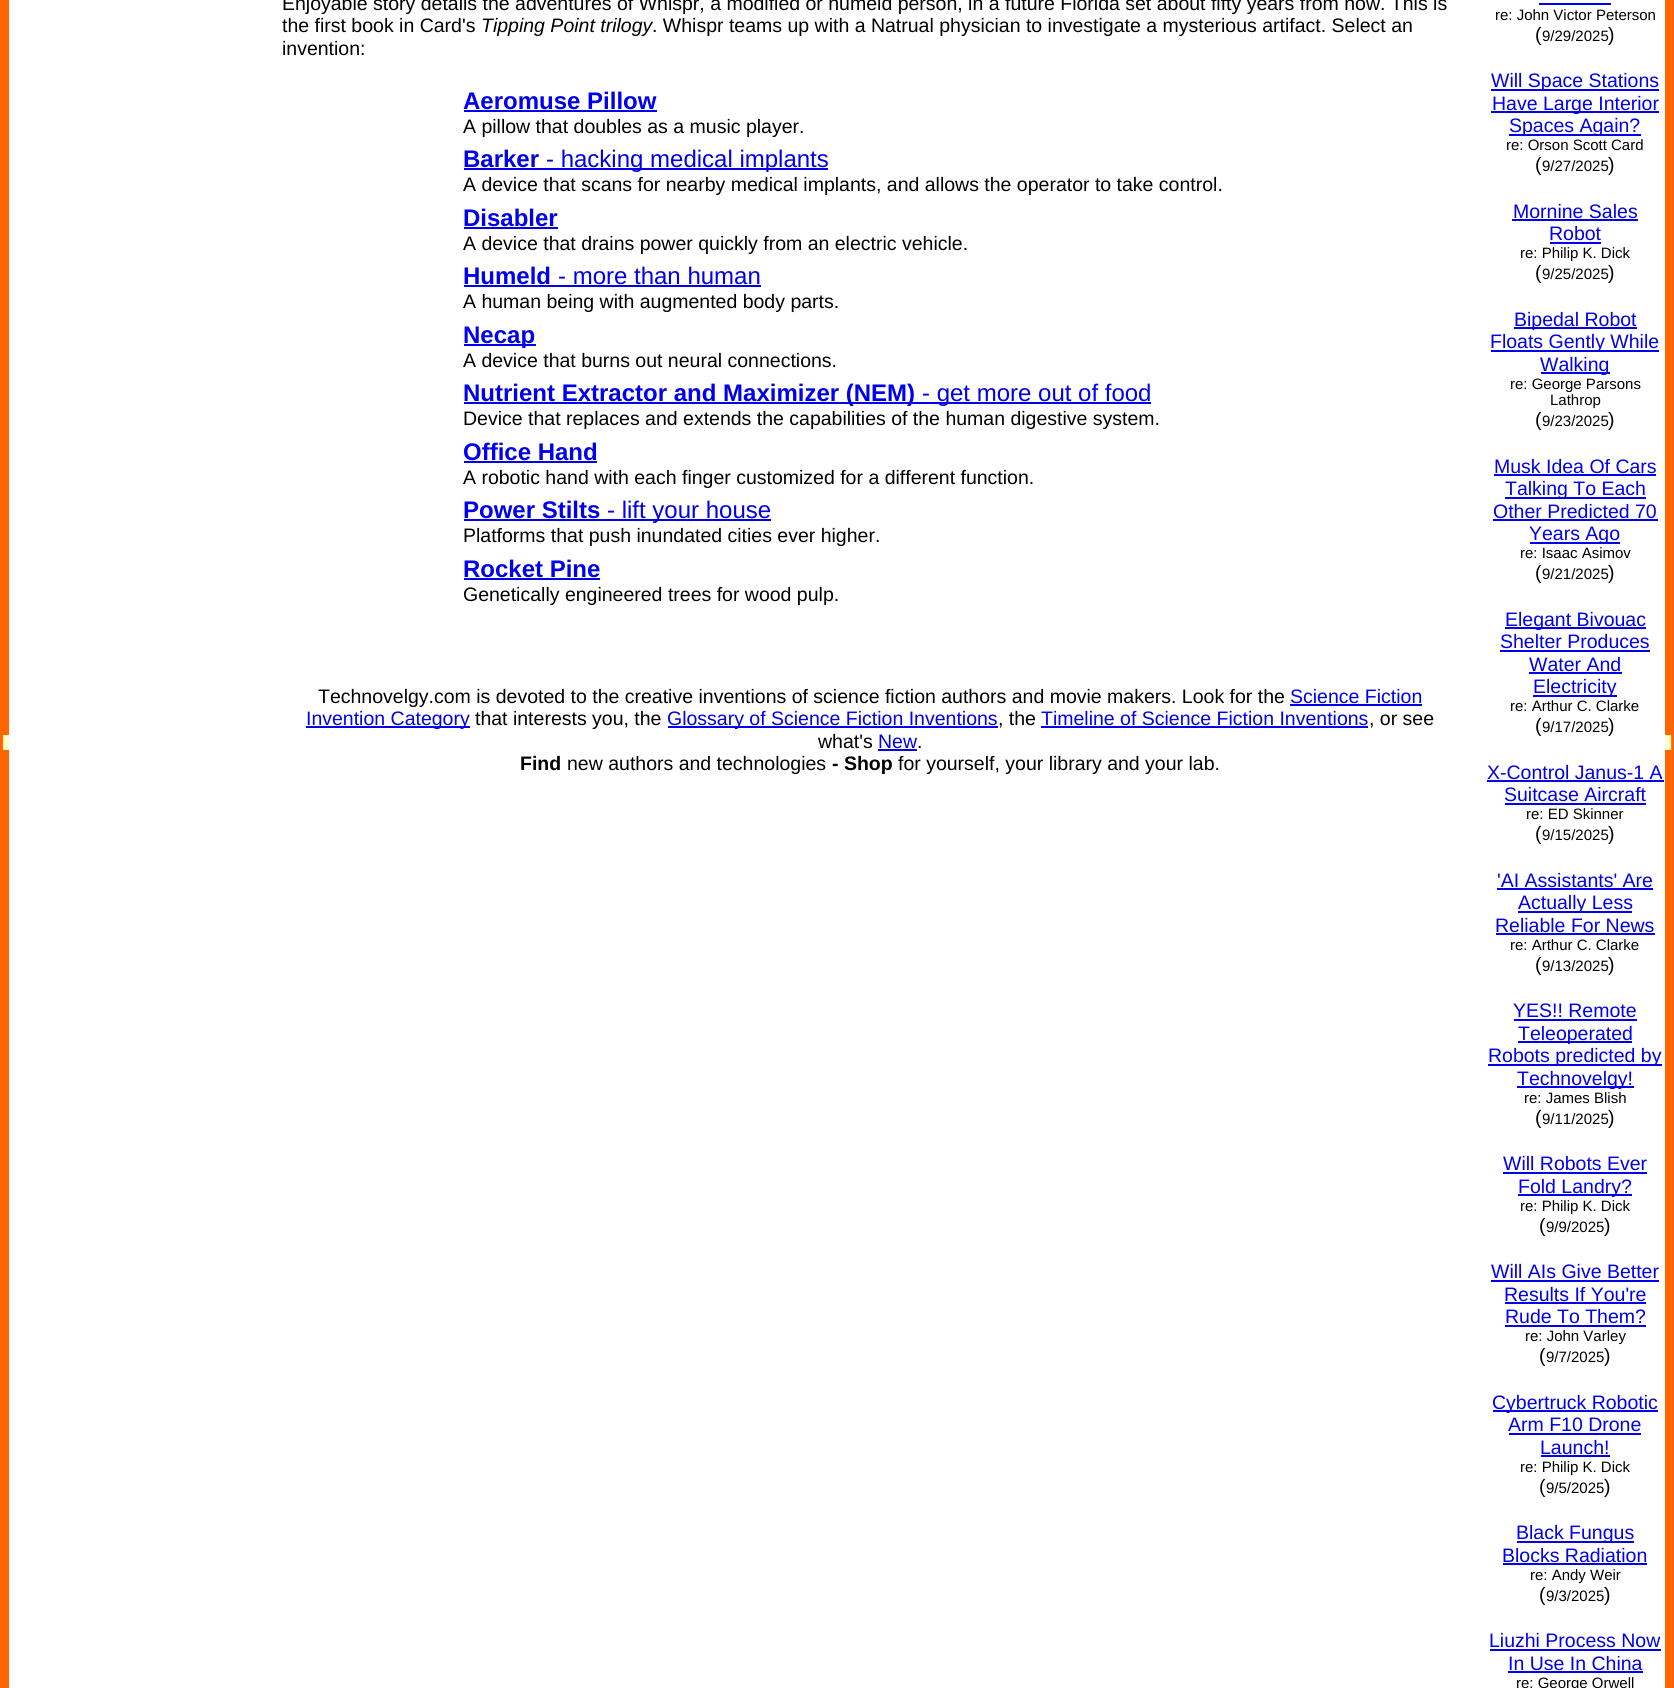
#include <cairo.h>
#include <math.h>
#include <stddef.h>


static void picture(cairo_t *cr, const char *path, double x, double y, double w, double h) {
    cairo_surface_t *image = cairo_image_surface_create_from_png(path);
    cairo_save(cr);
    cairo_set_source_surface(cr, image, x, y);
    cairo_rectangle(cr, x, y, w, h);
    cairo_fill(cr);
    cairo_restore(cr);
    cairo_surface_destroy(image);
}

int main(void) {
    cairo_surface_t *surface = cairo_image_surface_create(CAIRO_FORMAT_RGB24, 1674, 1688);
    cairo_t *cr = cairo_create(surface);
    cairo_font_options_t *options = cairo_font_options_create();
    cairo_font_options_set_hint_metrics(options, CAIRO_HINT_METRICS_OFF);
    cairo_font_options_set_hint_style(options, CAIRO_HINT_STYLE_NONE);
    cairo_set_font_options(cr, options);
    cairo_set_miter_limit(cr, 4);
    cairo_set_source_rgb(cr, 1, 1, 1);
    cairo_paint(cr);
    cairo_set_source_rgb(cr, 1, 0.4, 0);
    cairo_rectangle(cr, 0, 0, 9, 1688);
    cairo_fill(cr);
    picture(cr, "img1.png", 2, 735, 7, 15);
    cairo_select_font_face(cr, "Liberation Sans", CAIRO_FONT_SLANT_NORMAL, CAIRO_FONT_WEIGHT_NORMAL);
    cairo_set_font_size(cr, 19.5);
    cairo_set_source_rgb(cr, 0, 0, 0);
    cairo_move_to(cr, 282, 10);
    cairo_show_text(cr, "Enjoyable story details the adventures of Whispr, a modified or humeld person, in a future Florida set about fifty years from now. This is");
    cairo_move_to(cr, 282, 32);
    cairo_show_text(cr, "the first book in Card's");
    cairo_select_font_face(cr, "Liberation Sans", CAIRO_FONT_SLANT_ITALIC, CAIRO_FONT_WEIGHT_NORMAL);
    cairo_move_to(cr, 481, 32);
    cairo_show_text(cr, "Tipping Point trilogy");
    cairo_select_font_face(cr, "Liberation Sans", CAIRO_FONT_SLANT_NORMAL, CAIRO_FONT_WEIGHT_NORMAL);
    cairo_move_to(cr, 652, 32);
    cairo_show_text(cr, ". Whispr teams up with a Natrual physician to investigate a mysterious artifact. Select an");
    cairo_move_to(cr, 282, 55);
    cairo_show_text(cr, "invention:");
    cairo_select_font_face(cr, "Liberation Sans", CAIRO_FONT_SLANT_NORMAL, CAIRO_FONT_WEIGHT_BOLD);
    cairo_set_font_size(cr, 24);
    cairo_set_source_rgb(cr, 0, 0, 0.933);
    cairo_move_to(cr, 463, 109);
    cairo_show_text(cr, "Aeromuse Pillow");
    cairo_rectangle(cr, 464, 110, 193, 2);
    cairo_fill(cr);
    cairo_select_font_face(cr, "Liberation Sans", CAIRO_FONT_SLANT_NORMAL, CAIRO_FONT_WEIGHT_NORMAL);
    cairo_set_font_size(cr, 19.5);
    cairo_set_source_rgb(cr, 0, 0, 0);
    cairo_move_to(cr, 463, 133);
    cairo_show_text(cr, "A pillow that doubles as a music player.");
    cairo_select_font_face(cr, "Liberation Sans", CAIRO_FONT_SLANT_NORMAL, CAIRO_FONT_WEIGHT_BOLD);
    cairo_set_font_size(cr, 24);
    cairo_set_source_rgb(cr, 0, 0, 0.933);
    cairo_move_to(cr, 463, 167);
    cairo_show_text(cr, "Barker");
    cairo_rectangle(cr, 464, 168, 364, 2);
    cairo_fill(cr);
    cairo_select_font_face(cr, "Liberation Sans", CAIRO_FONT_SLANT_NORMAL, CAIRO_FONT_WEIGHT_NORMAL);
    cairo_move_to(cr, 546, 167);
    cairo_show_text(cr, "- hacking medical implants");
    cairo_set_font_size(cr, 19.5);
    cairo_set_source_rgb(cr, 0, 0, 0);
    cairo_move_to(cr, 463, 191);
    cairo_show_text(cr, "A device that scans for nearby medical implants, and allows the operator to take control.");
    cairo_select_font_face(cr, "Liberation Sans", CAIRO_FONT_SLANT_NORMAL, CAIRO_FONT_WEIGHT_BOLD);
    cairo_set_font_size(cr, 24);
    cairo_set_source_rgb(cr, 0, 0, 0.933);
    cairo_move_to(cr, 463, 226);
    cairo_show_text(cr, "Disabler");
    cairo_rectangle(cr, 464, 227, 94, 2);
    cairo_fill(cr);
    cairo_select_font_face(cr, "Liberation Sans", CAIRO_FONT_SLANT_NORMAL, CAIRO_FONT_WEIGHT_NORMAL);
    cairo_set_font_size(cr, 19.5);
    cairo_set_source_rgb(cr, 0, 0, 0);
    cairo_move_to(cr, 463, 250);
    cairo_show_text(cr, "A device that drains power quickly from an electric vehicle.");
    cairo_select_font_face(cr, "Liberation Sans", CAIRO_FONT_SLANT_NORMAL, CAIRO_FONT_WEIGHT_BOLD);
    cairo_set_font_size(cr, 24);
    cairo_set_source_rgb(cr, 0, 0, 0.933);
    cairo_move_to(cr, 463, 284);
    cairo_show_text(cr, "Humeld");
    cairo_rectangle(cr, 464, 285, 297, 2);
    cairo_fill(cr);
    cairo_select_font_face(cr, "Liberation Sans", CAIRO_FONT_SLANT_NORMAL, CAIRO_FONT_WEIGHT_NORMAL);
    cairo_move_to(cr, 558, 284);
    cairo_show_text(cr, "- more than human");
    cairo_set_font_size(cr, 19.5);
    cairo_set_source_rgb(cr, 0, 0, 0);
    cairo_move_to(cr, 463, 308);
    cairo_show_text(cr, "A human being with augmented body parts.");
    cairo_set_source_rgb(cr, 0, 0, 0.933);
    cairo_rectangle(cr, 464, 344, 72, 2);
    cairo_fill(cr);
    cairo_select_font_face(cr, "Liberation Sans", CAIRO_FONT_SLANT_NORMAL, CAIRO_FONT_WEIGHT_BOLD);
    cairo_set_font_size(cr, 24);
    cairo_move_to(cr, 463, 343);
    cairo_show_text(cr, "Necap");
    cairo_select_font_face(cr, "Liberation Sans", CAIRO_FONT_SLANT_NORMAL, CAIRO_FONT_WEIGHT_NORMAL);
    cairo_set_font_size(cr, 19.5);
    cairo_set_source_rgb(cr, 0, 0, 0);
    cairo_move_to(cr, 463, 367);
    cairo_show_text(cr, "A device that burns out neural connections.");
    cairo_set_source_rgb(cr, 0, 0, 0.933);
    cairo_rectangle(cr, 464, 402, 687, 2);
    cairo_fill(cr);
    cairo_select_font_face(cr, "Liberation Sans", CAIRO_FONT_SLANT_NORMAL, CAIRO_FONT_WEIGHT_BOLD);
    cairo_set_font_size(cr, 24);
    cairo_move_to(cr, 463, 401);
    cairo_show_text(cr, "Nutrient Extractor and Maximizer (NEM)");
    cairo_select_font_face(cr, "Liberation Sans", CAIRO_FONT_SLANT_NORMAL, CAIRO_FONT_WEIGHT_NORMAL);
    cairo_move_to(cr, 922, 401);
    cairo_show_text(cr, "- get more out of food");
    cairo_set_font_size(cr, 19.5);
    cairo_set_source_rgb(cr, 0, 0, 0);
    cairo_move_to(cr, 463, 425);
    cairo_show_text(cr, "Device that replaces and extends the capabilities of the human digestive system.");
    cairo_select_font_face(cr, "Liberation Sans", CAIRO_FONT_SLANT_NORMAL, CAIRO_FONT_WEIGHT_BOLD);
    cairo_set_font_size(cr, 24);
    cairo_set_source_rgb(cr, 0, 0, 0.933);
    cairo_move_to(cr, 463, 460);
    cairo_show_text(cr, "Office Hand");
    cairo_rectangle(cr, 464, 461, 133, 2);
    cairo_fill(cr);
    cairo_select_font_face(cr, "Liberation Sans", CAIRO_FONT_SLANT_NORMAL, CAIRO_FONT_WEIGHT_NORMAL);
    cairo_set_font_size(cr, 19.5);
    cairo_set_source_rgb(cr, 0, 0, 0);
    cairo_move_to(cr, 463, 484);
    cairo_show_text(cr, "A robotic hand with each finger customized for a different function.");
    cairo_select_font_face(cr, "Liberation Sans", CAIRO_FONT_SLANT_NORMAL, CAIRO_FONT_WEIGHT_BOLD);
    cairo_set_font_size(cr, 24);
    cairo_set_source_rgb(cr, 0, 0, 0.933);
    cairo_move_to(cr, 463, 518);
    cairo_show_text(cr, "Power Stilts");
    cairo_rectangle(cr, 464, 519, 307, 2);
    cairo_fill(cr);
    cairo_select_font_face(cr, "Liberation Sans", CAIRO_FONT_SLANT_NORMAL, CAIRO_FONT_WEIGHT_NORMAL);
    cairo_move_to(cr, 607, 518);
    cairo_show_text(cr, "- lift your house");
    cairo_set_font_size(cr, 19.5);
    cairo_set_source_rgb(cr, 0, 0, 0);
    cairo_move_to(cr, 463, 542);
    cairo_show_text(cr, "Platforms that push inundated cities ever higher.");
    cairo_select_font_face(cr, "Liberation Sans", CAIRO_FONT_SLANT_NORMAL, CAIRO_FONT_WEIGHT_BOLD);
    cairo_set_font_size(cr, 24);
    cairo_set_source_rgb(cr, 0, 0, 0.933);
    cairo_move_to(cr, 463, 577);
    cairo_show_text(cr, "Rocket Pine");
    cairo_rectangle(cr, 464, 578, 136, 2);
    cairo_fill(cr);
    cairo_select_font_face(cr, "Liberation Sans", CAIRO_FONT_SLANT_NORMAL, CAIRO_FONT_WEIGHT_NORMAL);
    cairo_set_font_size(cr, 19.5);
    cairo_set_source_rgb(cr, 0, 0, 0);
    cairo_move_to(cr, 463, 601);
    cairo_show_text(cr, "Genetically engineered trees for wood pulp.");
    cairo_move_to(cr, 318, 703);
    cairo_show_text(cr, "Technovelgy.com is devoted to the creative inventions of science fiction authors and movie makers. Look for the");
    cairo_set_source_rgb(cr, 0, 0, 0.933);
    cairo_move_to(cr, 1290, 703);
    cairo_show_text(cr, "Science Fiction");
    cairo_rectangle(cr, 1290, 704, 132, 2);
    cairo_fill(cr);
    cairo_rectangle(cr, 306, 726, 164, 2);
    cairo_fill(cr);
    cairo_move_to(cr, 306, 725);
    cairo_show_text(cr, "Invention Category");
    cairo_set_source_rgb(cr, 0, 0, 0);
    cairo_move_to(cr, 475, 725);
    cairo_show_text(cr, "that interests you, the");
    cairo_set_source_rgb(cr, 0, 0, 0.933);
    cairo_rectangle(cr, 668, 726, 330, 2);
    cairo_fill(cr);
    cairo_move_to(cr, 667, 725);
    cairo_show_text(cr, "Glossary of Science Fiction Inventions");
    cairo_set_source_rgb(cr, 0, 0, 0);
    cairo_move_to(cr, 998, 725);
    cairo_show_text(cr, ", the");
    cairo_set_source_rgb(cr, 0, 0, 0.933);
    cairo_move_to(cr, 1041, 725);
    cairo_show_text(cr, "Timeline of Science Fiction Inventions");
    cairo_set_source_rgb(cr, 0, 0, 0);
    cairo_move_to(cr, 1369, 725);
    cairo_show_text(cr, ", or see");
    cairo_set_source_rgb(cr, 0, 0, 0.933);
    cairo_rectangle(cr, 1041, 726, 327, 2);
    cairo_fill(cr);
    cairo_set_source_rgb(cr, 0, 0, 0);
    cairo_move_to(cr, 818, 748);
    cairo_show_text(cr, "what's");
    cairo_set_source_rgb(cr, 0, 0, 0.933);
    cairo_move_to(cr, 878, 748);
    cairo_show_text(cr, "New");
    cairo_set_source_rgb(cr, 0, 0, 0);
    cairo_move_to(cr, 917, 748);
    cairo_show_text(cr, ".");
    cairo_set_source_rgb(cr, 0, 0, 0.933);
    cairo_rectangle(cr, 878, 749, 39, 2);
    cairo_fill(cr);
    cairo_select_font_face(cr, "Liberation Sans", CAIRO_FONT_SLANT_NORMAL, CAIRO_FONT_WEIGHT_BOLD);
    cairo_set_source_rgb(cr, 0, 0, 0);
    cairo_move_to(cr, 520, 770);
    cairo_show_text(cr, "Find");
    cairo_select_font_face(cr, "Liberation Sans", CAIRO_FONT_SLANT_NORMAL, CAIRO_FONT_WEIGHT_NORMAL);
    cairo_move_to(cr, 567, 770);
    cairo_show_text(cr, "new authors and technologies");
    cairo_select_font_face(cr, "Liberation Sans", CAIRO_FONT_SLANT_NORMAL, CAIRO_FONT_WEIGHT_BOLD);
    cairo_move_to(cr, 832, 770);
    cairo_show_text(cr, "- Shop");
    cairo_select_font_face(cr, "Liberation Sans", CAIRO_FONT_SLANT_NORMAL, CAIRO_FONT_WEIGHT_NORMAL);
    cairo_move_to(cr, 898, 770);
    cairo_show_text(cr, "for yourself, your library and your lab.");
    cairo_set_font_size(cr, 15);
    cairo_move_to(cr, 1495, 20);
    cairo_show_text(cr, "re: John Victor Peterson");
    cairo_set_source_rgb(cr, 0, 0, 0.933);
    cairo_rectangle(cr, 1539, 3, 72, 2);
    cairo_fill(cr);
    cairo_set_font_size(cr, 19.5);
    cairo_set_source_rgb(cr, 0, 0, 0);
    cairo_move_to(cr, 1535, 41);
    cairo_show_text(cr, "(");
    cairo_set_font_size(cr, 15);
    cairo_move_to(cr, 1542, 41);
    cairo_show_text(cr, "9/29/2025");
    cairo_set_font_size(cr, 19.5);
    cairo_move_to(cr, 1608, 41);
    cairo_show_text(cr, ")");
    cairo_set_source_rgb(cr, 0, 0, 0.933);
    cairo_rectangle(cr, 1491, 89, 168, 2);
    cairo_fill(cr);
    cairo_move_to(cr, 1491, 87);
    cairo_show_text(cr, "Will Space Stations");
    cairo_rectangle(cr, 1491, 111, 168, 2);
    cairo_fill(cr);
    cairo_move_to(cr, 1492, 110);
    cairo_show_text(cr, "Have Large Interior");
    cairo_rectangle(cr, 1509, 134, 132, 2);
    cairo_fill(cr);
    cairo_move_to(cr, 1509, 132);
    cairo_show_text(cr, "Spaces Again?");
    cairo_set_font_size(cr, 15);
    cairo_set_source_rgb(cr, 0, 0, 0);
    cairo_move_to(cr, 1506, 150);
    cairo_show_text(cr, "re: Orson Scott Card");
    cairo_set_font_size(cr, 19.5);
    cairo_move_to(cr, 1535, 171);
    cairo_show_text(cr, "(");
    cairo_set_font_size(cr, 15);
    cairo_move_to(cr, 1542, 171);
    cairo_show_text(cr, "9/27/2025");
    cairo_set_font_size(cr, 19.5);
    cairo_move_to(cr, 1608, 171);
    cairo_show_text(cr, ")");
    cairo_set_source_rgb(cr, 0, 0, 0.933);
    cairo_move_to(cr, 1513, 218);
    cairo_show_text(cr, "Mornine Sales");
    cairo_rectangle(cr, 1512, 219, 126, 2);
    cairo_fill(cr);
    cairo_move_to(cr, 1549, 240);
    cairo_show_text(cr, "Robot");
    cairo_rectangle(cr, 1550, 242, 51, 2);
    cairo_fill(cr);
    cairo_set_font_size(cr, 15);
    cairo_set_source_rgb(cr, 0, 0, 0);
    cairo_move_to(cr, 1520, 258);
    cairo_show_text(cr, "re: Philip K. Dick");
    cairo_set_font_size(cr, 19.5);
    cairo_move_to(cr, 1535, 279);
    cairo_show_text(cr, "(");
    cairo_set_font_size(cr, 15);
    cairo_move_to(cr, 1542, 279);
    cairo_show_text(cr, "9/25/2025");
    cairo_set_font_size(cr, 19.5);
    cairo_move_to(cr, 1608, 279);
    cairo_show_text(cr, ")");
    cairo_set_source_rgb(cr, 0, 0, 0.933);
    cairo_rectangle(cr, 1514, 327, 123, 2);
    cairo_fill(cr);
    cairo_move_to(cr, 1514, 326);
    cairo_show_text(cr, "Bipedal Robot");
    cairo_rectangle(cr, 1491, 350, 168, 2);
    cairo_fill(cr);
    cairo_move_to(cr, 1490, 348);
    cairo_show_text(cr, "Floats Gently While");
    cairo_rectangle(cr, 1541, 372, 69, 2);
    cairo_fill(cr);
    cairo_move_to(cr, 1540, 371);
    cairo_show_text(cr, "Walking");
    cairo_set_font_size(cr, 15);
    cairo_set_source_rgb(cr, 0, 0, 0);
    cairo_move_to(cr, 1510, 389);
    cairo_show_text(cr, "re: George Parsons");
    cairo_move_to(cr, 1550, 405);
    cairo_show_text(cr, "Lathrop");
    cairo_set_font_size(cr, 19.5);
    cairo_move_to(cr, 1535, 426);
    cairo_show_text(cr, "(");
    cairo_set_font_size(cr, 15);
    cairo_move_to(cr, 1542, 426);
    cairo_show_text(cr, "9/23/2025");
    cairo_set_font_size(cr, 19.5);
    cairo_move_to(cr, 1608, 426);
    cairo_show_text(cr, ")");
    cairo_set_source_rgb(cr, 0, 0, 0.933);
    cairo_move_to(cr, 1494, 473);
    cairo_show_text(cr, "Musk Idea Of Cars");
    cairo_rectangle(cr, 1494, 474, 162, 2);
    cairo_fill(cr);
    cairo_rectangle(cr, 1505, 497, 141, 2);
    cairo_fill(cr);
    cairo_move_to(cr, 1505, 495);
    cairo_show_text(cr, "Talking To Each");
    cairo_move_to(cr, 1493, 518);
    cairo_show_text(cr, "Other Predicted 70");
    cairo_rectangle(cr, 1493, 519, 165, 2);
    cairo_fill(cr);
    cairo_rectangle(cr, 1530, 542, 90, 2);
    cairo_fill(cr);
    cairo_move_to(cr, 1529, 540);
    cairo_show_text(cr, "Years Ago");
    cairo_set_font_size(cr, 15);
    cairo_set_source_rgb(cr, 0, 0, 0);
    cairo_move_to(cr, 1520, 558);
    cairo_show_text(cr, "re: Isaac Asimov");
    cairo_set_font_size(cr, 19.5);
    cairo_move_to(cr, 1535, 579);
    cairo_show_text(cr, "(");
    cairo_set_font_size(cr, 15);
    cairo_move_to(cr, 1542, 579);
    cairo_show_text(cr, "9/21/2025");
    cairo_set_font_size(cr, 19.5);
    cairo_move_to(cr, 1608, 579);
    cairo_show_text(cr, ")");
    cairo_set_source_rgb(cr, 0, 0, 0.933);
    cairo_rectangle(cr, 1505, 627, 141, 2);
    cairo_fill(cr);
    cairo_move_to(cr, 1505, 626);
    cairo_show_text(cr, "Elegant Bivouac");
    cairo_move_to(cr, 1500, 648);
    cairo_show_text(cr, "Shelter Produces");
    cairo_rectangle(cr, 1500, 650, 150, 2);
    cairo_fill(cr);
    cairo_move_to(cr, 1529, 671);
    cairo_show_text(cr, "Water And");
    cairo_rectangle(cr, 1529, 672, 93, 2);
    cairo_fill(cr);
    cairo_rectangle(cr, 1533, 695, 84, 2);
    cairo_fill(cr);
    cairo_move_to(cr, 1533, 693);
    cairo_show_text(cr, "Electricity");
    cairo_set_font_size(cr, 15);
    cairo_set_source_rgb(cr, 0, 0, 0);
    cairo_move_to(cr, 1510, 711);
    cairo_show_text(cr, "re: Arthur C. Clarke");
    cairo_set_font_size(cr, 19.5);
    cairo_move_to(cr, 1535, 732);
    cairo_show_text(cr, "(");
    cairo_set_font_size(cr, 15);
    cairo_move_to(cr, 1542, 732);
    cairo_show_text(cr, "9/17/2025");
    cairo_set_font_size(cr, 19.5);
    cairo_move_to(cr, 1608, 732);
    cairo_show_text(cr, ")");
    cairo_set_source_rgb(cr, 0, 0, 0.933);
    cairo_move_to(cr, 1487, 779);
    cairo_show_text(cr, "X-Control Janus-1 A");
    cairo_rectangle(cr, 1487, 780, 177, 2);
    cairo_fill(cr);
    cairo_move_to(cr, 1504, 801);
    cairo_show_text(cr, "Suitcase Aircraft");
    cairo_rectangle(cr, 1505, 803, 141, 2);
    cairo_fill(cr);
    cairo_set_font_size(cr, 15);
    cairo_set_source_rgb(cr, 0, 0, 0);
    cairo_move_to(cr, 1526, 819);
    cairo_show_text(cr, "re: ED Skinner");
    cairo_set_font_size(cr, 19.5);
    cairo_move_to(cr, 1535, 840);
    cairo_show_text(cr, "(");
    cairo_set_font_size(cr, 15);
    cairo_move_to(cr, 1542, 840);
    cairo_show_text(cr, "9/15/2025");
    cairo_set_font_size(cr, 19.5);
    cairo_move_to(cr, 1608, 840);
    cairo_show_text(cr, ")");
    cairo_set_source_rgb(cr, 0, 0, 0.933);
    cairo_move_to(cr, 1497, 887);
    cairo_show_text(cr, "'AI Assistants' Are");
    cairo_rectangle(cr, 1497, 888, 156, 2);
    cairo_fill(cr);
    cairo_rectangle(cr, 1518, 911, 114, 2);
    cairo_fill(cr);
    cairo_move_to(cr, 1518, 909);
    cairo_show_text(cr, "Actually Less");
    cairo_move_to(cr, 1495, 932);
    cairo_show_text(cr, "Reliable For News");
    cairo_rectangle(cr, 1496, 933, 159, 2);
    cairo_fill(cr);
    cairo_set_font_size(cr, 15);
    cairo_set_source_rgb(cr, 0, 0, 0);
    cairo_move_to(cr, 1510, 950);
    cairo_show_text(cr, "re: Arthur C. Clarke");
    cairo_set_font_size(cr, 19.5);
    cairo_move_to(cr, 1535, 971);
    cairo_show_text(cr, "(");
    cairo_set_font_size(cr, 15);
    cairo_move_to(cr, 1542, 971);
    cairo_show_text(cr, "9/13/2025");
    cairo_set_font_size(cr, 19.5);
    cairo_move_to(cr, 1608, 971);
    cairo_show_text(cr, ")");
    cairo_set_source_rgb(cr, 0, 0, 0.933);
    cairo_move_to(cr, 1513, 1017);
    cairo_show_text(cr, "YES!! Remote");
    cairo_rectangle(cr, 1514, 1019, 123, 2);
    cairo_fill(cr);
    cairo_rectangle(cr, 1518, 1041, 114, 2);
    cairo_fill(cr);
    cairo_move_to(cr, 1518, 1040);
    cairo_show_text(cr, "Teleoperated");
    cairo_rectangle(cr, 1488, 1064, 174, 2);
    cairo_fill(cr);
    cairo_move_to(cr, 1488, 1062);
    cairo_show_text(cr, "Robots predicted by");
    cairo_rectangle(cr, 1517, 1086, 117, 2);
    cairo_fill(cr);
    cairo_move_to(cr, 1517, 1085);
    cairo_show_text(cr, "Technovelgy!");
    cairo_set_font_size(cr, 15);
    cairo_set_source_rgb(cr, 0, 0, 0);
    cairo_move_to(cr, 1524, 1103);
    cairo_show_text(cr, "re: James Blish");
    cairo_set_font_size(cr, 19.5);
    cairo_move_to(cr, 1535, 1124);
    cairo_show_text(cr, "(");
    cairo_set_font_size(cr, 15);
    cairo_move_to(cr, 1542, 1124);
    cairo_show_text(cr, "9/11/2025");
    cairo_set_font_size(cr, 19.5);
    cairo_move_to(cr, 1608, 1124);
    cairo_show_text(cr, ")");
    cairo_set_source_rgb(cr, 0, 0, 0.933);
    cairo_move_to(cr, 1503, 1170);
    cairo_show_text(cr, "Will Robots Ever");
    cairo_rectangle(cr, 1503, 1172, 144, 2);
    cairo_fill(cr);
    cairo_rectangle(cr, 1518, 1194, 114, 2);
    cairo_fill(cr);
    cairo_move_to(cr, 1518, 1193);
    cairo_show_text(cr, "Fold Landry?");
    cairo_set_font_size(cr, 15);
    cairo_set_source_rgb(cr, 0, 0, 0);
    cairo_move_to(cr, 1520, 1211);
    cairo_show_text(cr, "re: Philip K. Dick");
    cairo_set_font_size(cr, 19.5);
    cairo_move_to(cr, 1539, 1232);
    cairo_show_text(cr, "(");
    cairo_set_font_size(cr, 15);
    cairo_move_to(cr, 1546, 1232);
    cairo_show_text(cr, "9/9/2025");
    cairo_set_font_size(cr, 19.5);
    cairo_move_to(cr, 1604, 1232);
    cairo_show_text(cr, ")");
    cairo_set_source_rgb(cr, 0, 0, 0.933);
    cairo_move_to(cr, 1491, 1278);
    cairo_show_text(cr, "Will AIs Give Better");
    cairo_rectangle(cr, 1491, 1280, 168, 2);
    cairo_fill(cr);
    cairo_move_to(cr, 1504, 1301);
    cairo_show_text(cr, "Results If You're");
    cairo_rectangle(cr, 1505, 1302, 141, 2);
    cairo_fill(cr);
    cairo_move_to(cr, 1505, 1323);
    cairo_show_text(cr, "Rude To Them?");
    cairo_rectangle(cr, 1505, 1325, 141, 2);
    cairo_fill(cr);
    cairo_set_font_size(cr, 15);
    cairo_set_source_rgb(cr, 0, 0, 0);
    cairo_move_to(cr, 1525, 1341);
    cairo_show_text(cr, "re: John Varley");
    cairo_set_font_size(cr, 19.5);
    cairo_move_to(cr, 1539, 1362);
    cairo_show_text(cr, "(");
    cairo_set_font_size(cr, 15);
    cairo_move_to(cr, 1546, 1362);
    cairo_show_text(cr, "9/7/2025");
    cairo_set_font_size(cr, 19.5);
    cairo_move_to(cr, 1604, 1362);
    cairo_show_text(cr, ")");
    cairo_set_source_rgb(cr, 0, 0, 0.933);
    cairo_rectangle(cr, 1493, 1410, 165, 2);
    cairo_fill(cr);
    cairo_move_to(cr, 1492, 1409);
    cairo_show_text(cr, "Cybertruck Robotic");
    cairo_move_to(cr, 1508, 1431);
    cairo_show_text(cr, "Arm F10 Drone");
    cairo_rectangle(cr, 1509, 1433, 132, 2);
    cairo_fill(cr);
    cairo_move_to(cr, 1540, 1454);
    cairo_show_text(cr, "Launch!");
    cairo_rectangle(cr, 1541, 1455, 69, 2);
    cairo_fill(cr);
    cairo_set_font_size(cr, 15);
    cairo_set_source_rgb(cr, 0, 0, 0);
    cairo_move_to(cr, 1520, 1472);
    cairo_show_text(cr, "re: Philip K. Dick");
    cairo_set_font_size(cr, 19.5);
    cairo_move_to(cr, 1539, 1493);
    cairo_show_text(cr, "(");
    cairo_set_font_size(cr, 15);
    cairo_move_to(cr, 1546, 1493);
    cairo_show_text(cr, "9/5/2025");
    cairo_set_font_size(cr, 19.5);
    cairo_move_to(cr, 1604, 1493);
    cairo_show_text(cr, ")");
    cairo_set_source_rgb(cr, 0, 0, 0.933);
    cairo_rectangle(cr, 1517, 1541, 117, 2);
    cairo_fill(cr);
    cairo_move_to(cr, 1516, 1539);
    cairo_show_text(cr, "Black Fungus");
    cairo_move_to(cr, 1502, 1562);
    cairo_show_text(cr, "Blocks Radiation");
    cairo_rectangle(cr, 1503, 1563, 144, 2);
    cairo_fill(cr);
    cairo_set_font_size(cr, 15);
    cairo_set_source_rgb(cr, 0, 0, 0);
    cairo_move_to(cr, 1530, 1580);
    cairo_show_text(cr, "re: Andy Weir");
    cairo_set_font_size(cr, 19.5);
    cairo_move_to(cr, 1539, 1601);
    cairo_show_text(cr, "(");
    cairo_set_font_size(cr, 15);
    cairo_move_to(cr, 1546, 1601);
    cairo_show_text(cr, "9/3/2025");
    cairo_set_font_size(cr, 19.5);
    cairo_move_to(cr, 1604, 1601);
    cairo_show_text(cr, ")");
    cairo_set_source_rgb(cr, 0, 0, 0.933);
    cairo_move_to(cr, 1489, 1647);
    cairo_show_text(cr, "Liuzhi Process Now");
    cairo_rectangle(cr, 1490, 1649, 171, 2);
    cairo_fill(cr);
    cairo_move_to(cr, 1508, 1670);
    cairo_show_text(cr, "In Use In China");
    cairo_rectangle(cr, 1508, 1671, 135, 2);
    cairo_fill(cr);
    cairo_set_font_size(cr, 15);
    cairo_set_source_rgb(cr, 0, 0, 0);
    cairo_move_to(cr, 1516, 1688);
    cairo_show_text(cr, "re: George Orwell");
    cairo_set_source_rgb(cr, 1, 0.4, 0);
    cairo_rectangle(cr, 1665, 0, 9, 1688);
    cairo_fill(cr);
    picture(cr, "img2.png", 1665, 735, 7, 15);
    cairo_surface_write_to_png(surface, "page.png");
    cairo_font_options_destroy(options);
    cairo_destroy(cr);
    cairo_surface_destroy(surface);
    return 0;
}
